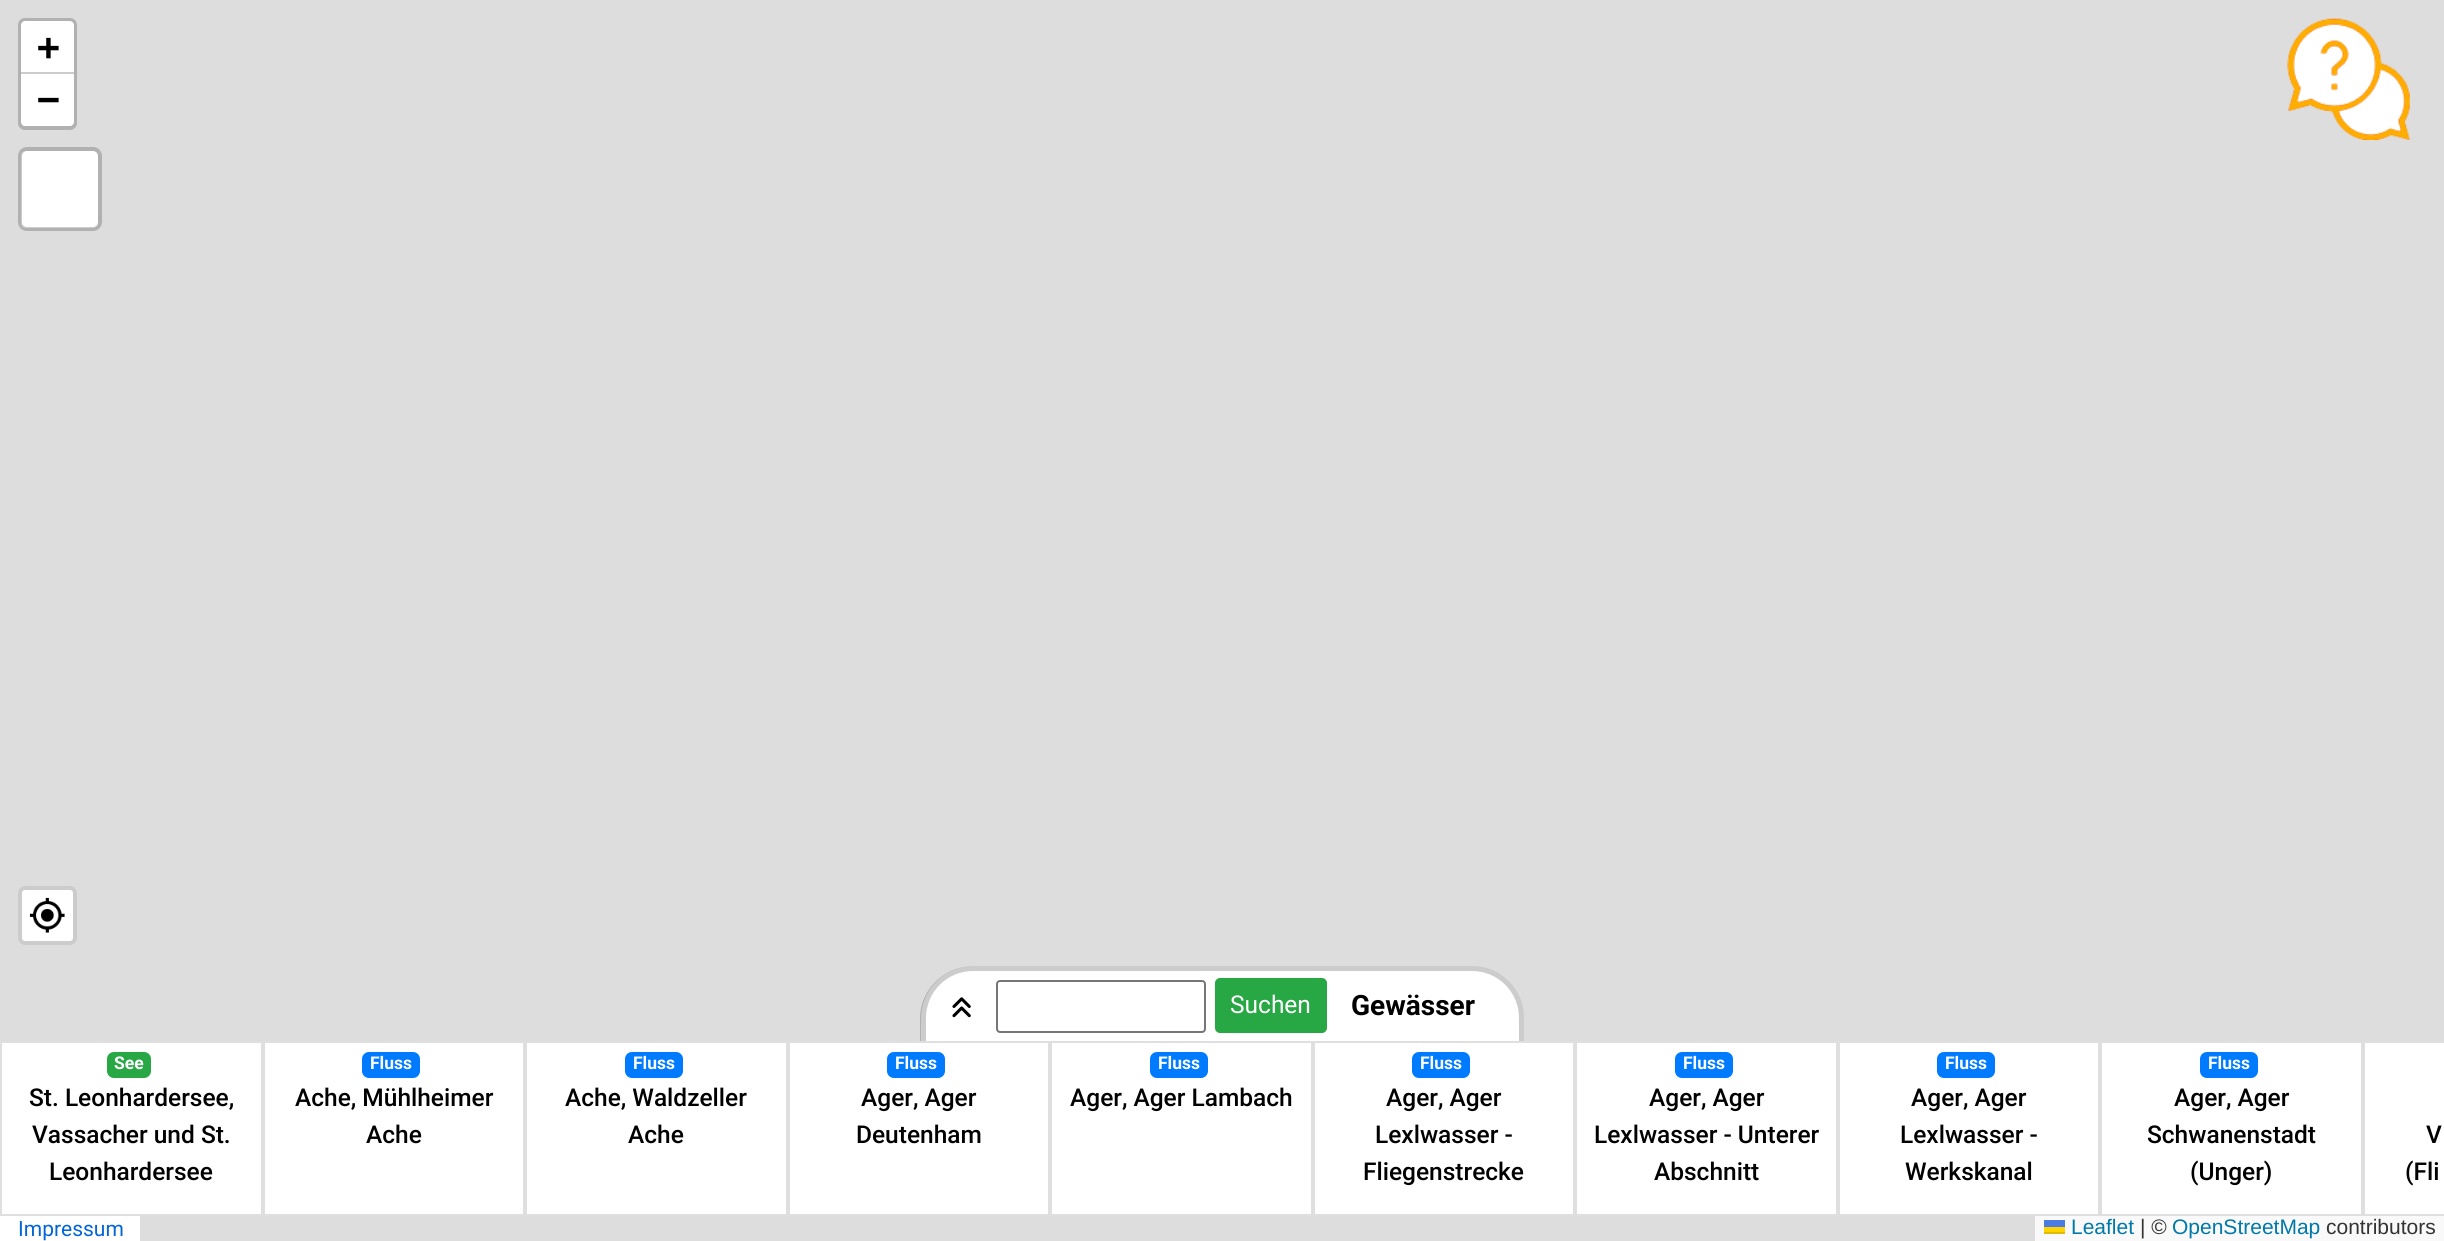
#include <cairo.h>
#include <math.h>
#include <stddef.h>


static void round_rect(cairo_t *cr, double x, double y, double w, double h, double r) {
    cairo_new_sub_path(cr);
    cairo_arc(cr, x + w - r, y + h - r, r, 0, M_PI / 2);
    cairo_arc(cr, x + r, y + h - r, r, M_PI / 2, M_PI);
    cairo_arc(cr, x + r, y + r, r, M_PI, 1.5 * M_PI);
    cairo_arc(cr, x + w - r, y + r, r, 1.5 * M_PI, 2 * M_PI);
    cairo_close_path(cr);
}

static void picture(cairo_t *cr, const char *path, double x, double y, double w, double h) {
    cairo_surface_t *image = cairo_image_surface_create_from_png(path);
    cairo_save(cr);
    cairo_set_source_surface(cr, image, x, y);
    cairo_rectangle(cr, x, y, w, h);
    cairo_fill(cr);
    cairo_restore(cr);
    cairo_surface_destroy(image);
}

int main(void) {
    cairo_surface_t *surface = cairo_image_surface_create(CAIRO_FORMAT_RGB24, 2444, 1241);
    cairo_t *cr = cairo_create(surface);
    cairo_font_options_t *options = cairo_font_options_create();
    cairo_font_options_set_hint_metrics(options, CAIRO_HINT_METRICS_OFF);
    cairo_font_options_set_hint_style(options, CAIRO_HINT_STYLE_NONE);
    cairo_set_font_options(cr, options);
    cairo_set_miter_limit(cr, 4);
    cairo_set_source_rgb(cr, 0.867, 0.867, 0.867);
    cairo_paint(cr);
    picture(cr, "img1.png", 2287, 18, 123, 122);
    round_rect(cr, 20, 20, 55, 108, 5);
    cairo_set_source_rgb(cr, 0.694, 0.694, 0.694);
    cairo_set_line_width(cr, 4);
    cairo_stroke(cr);
    cairo_set_source_rgb(cr, 1, 1, 1);
    cairo_new_path(cr);
    cairo_move_to(cr, 25, 21);
    cairo_line_to(cr, 70, 21);
    cairo_curve_to(cr, 72, 21, 74, 23, 74, 25);
    cairo_line_to(cr, 74, 74);
    cairo_line_to(cr, 21, 74);
    cairo_line_to(cr, 21, 25);
    cairo_curve_to(cr, 21, 23, 23, 21, 25, 21);
    cairo_close_path(cr);
    cairo_fill(cr);
    cairo_set_source_rgb(cr, 0.8, 0.8, 0.8);
    cairo_rectangle(cr, 21, 72, 53, 2);
    cairo_fill(cr);
    cairo_select_font_face(cr, "DejaVu Sans Mono", CAIRO_FONT_SLANT_NORMAL, CAIRO_FONT_WEIGHT_BOLD);
    cairo_set_font_size(cr, 38);
    cairo_set_source_rgb(cr, 0, 0, 0);
    cairo_move_to(cr, 37, 60);
    cairo_show_text(cr, "+");
    cairo_set_source_rgb(cr, 1, 1, 1);
    cairo_new_path(cr);
    cairo_move_to(cr, 21, 74);
    cairo_line_to(cr, 74, 74);
    cairo_line_to(cr, 74, 122);
    cairo_curve_to(cr, 74, 124, 72, 126, 70, 126);
    cairo_line_to(cr, 25, 126);
    cairo_curve_to(cr, 23, 126, 21, 124, 21, 122);
    cairo_close_path(cr);
    cairo_fill(cr);
    cairo_set_source_rgb(cr, 0, 0, 0);
    cairo_move_to(cr, 37, 112);
    cairo_show_text(cr, "−");
    cairo_set_source_rgb(cr, 1, 1, 1);
    round_rect(cr, 21, 151, 77, 77, 5);
    cairo_fill(cr);
    round_rect(cr, 20, 149, 80, 80, 7);
    cairo_set_source_rgba(cr, 0, 0, 0, 0.2);
    cairo_stroke(cr);
    cairo_set_source_rgb(cr, 0.973, 0.973, 0.973);
    cairo_rectangle(cr, 2035, 1216, 409, 25);
    cairo_fill(cr);
    cairo_select_font_face(cr, "Liberation Sans", CAIRO_FONT_SLANT_NORMAL, CAIRO_FONT_WEIGHT_NORMAL);
    cairo_set_font_size(cr, 21);
    cairo_set_source_rgb(cr, 0, 0.471, 0.659);
    cairo_move_to(cr, 2071, 1234);
    cairo_show_text(cr, "Leaflet");
    cairo_set_source_rgb(cr, 0.298, 0.482, 0.882);
    cairo_rectangle(cr, 2044, 1220, 21, 7);
    cairo_fill(cr);
    cairo_set_source_rgb(cr, 1, 0.835, 0);
    cairo_rectangle(cr, 2044, 1227, 21, 5);
    cairo_fill(cr);
    cairo_set_source_rgb(cr, 0.878, 0.737, 0);
    cairo_rectangle(cr, 2044, 1232, 21, 2);
    cairo_fill(cr);
    cairo_set_source_rgb(cr, 0.2, 0.2, 0.2);
    cairo_move_to(cr, 2140, 1234);
    cairo_show_text(cr, "| ©");
    cairo_set_source_rgb(cr, 0, 0.471, 0.659);
    cairo_move_to(cr, 2172, 1234);
    cairo_show_text(cr, "OpenStreetMap");
    cairo_set_source_rgb(cr, 0.2, 0.2, 0.2);
    cairo_move_to(cr, 2326, 1234);
    cairo_show_text(cr, "contributors");
    cairo_set_source_rgb(cr, 1, 1, 1);
    round_rect(cr, 18, 886, 59, 59, 7);
    cairo_fill(cr);
    round_rect(cr, 20, 888, 55, 55, 5);
    cairo_set_source_rgba(cr, 0, 0, 0, 0.2);
    cairo_stroke(cr);
    picture(cr, "img2.png", 29, 897, 36, 36);
    cairo_set_source_rgb(cr, 1, 1, 1);
    cairo_new_path(cr);
    cairo_move_to(cr, 974, 966);
    cairo_line_to(cr, 1471, 966);
    cairo_curve_to(cr, 1500.5, 966, 1524, 989.5, 1524, 1019);
    cairo_line_to(cr, 1524, 1041);
    cairo_line_to(cr, 921, 1041);
    cairo_line_to(cr, 921, 1019);
    cairo_curve_to(cr, 921, 989.5, 944.5, 966, 974, 966);
    cairo_close_path(cr);
    cairo_fill(cr);
    cairo_set_source_rgba(cr, 0, 0, 0, 0.2);
    cairo_set_fill_rule(cr, CAIRO_FILL_RULE_EVEN_ODD);
    cairo_new_path(cr);
    cairo_move_to(cr, 973, 966);
    cairo_line_to(cr, 1472, 966);
    cairo_curve_to(cr, 1501, 966, 1524, 990, 1524, 1018);
    cairo_line_to(cr, 1524, 1041);
    cairo_line_to(cr, 920, 1041);
    cairo_line_to(cr, 920, 1018);
    cairo_curve_to(cr, 920, 990, 944, 966, 973, 966);
    cairo_close_path(cr);
    cairo_move_to(cr, 973, 971);
    cairo_line_to(cr, 1472, 971);
    cairo_curve_to(cr, 1498, 971, 1519, 992, 1519, 1018);
    cairo_line_to(cr, 1519, 1041);
    cairo_line_to(cr, 926, 1041);
    cairo_line_to(cr, 926, 1018);
    cairo_curve_to(cr, 926, 992, 947, 971, 973, 971);
    cairo_close_path(cr);
    cairo_fill(cr);
    picture(cr, "img3.png", 952, 997, 19, 21);
    round_rect(cr, 997, 981, 208, 51, 3);
    cairo_set_source_rgb(cr, 0.463, 0.463, 0.463);
    cairo_set_line_width(cr, 2);
    cairo_stroke(cr);
    cairo_set_source_rgb(cr, 0.157, 0.655, 0.271);
    round_rect(cr, 1216, 979, 110, 53, 4);
    cairo_fill_preserve(cr);
    cairo_stroke(cr);
    cairo_select_font_face(cr, "Roboto", CAIRO_FONT_SLANT_NORMAL, CAIRO_FONT_WEIGHT_NORMAL);
    cairo_set_font_size(cr, 24.5);
    cairo_set_source_rgb(cr, 1, 1, 1);
    cairo_move_to(cr, 1230, 1013);
    cairo_show_text(cr, "Suchen");
    cairo_select_font_face(cr, "Roboto", CAIRO_FONT_SLANT_NORMAL, CAIRO_FONT_WEIGHT_BOLD);
    cairo_set_font_size(cr, 28);
    cairo_set_source_rgb(cr, 0, 0, 0);
    cairo_move_to(cr, 1351, 1015);
    cairo_show_text(cr, "Gewässer");
    cairo_set_source_rgb(cr, 1, 1, 1);
    cairo_rectangle(cr, 2, 1043, 2442, 171);
    cairo_fill(cr);
    cairo_rectangle(cr, 1, 1042, 261, 173);
    cairo_set_source_rgb(cr, 0.875, 0.875, 0.875);
    cairo_stroke(cr);
    cairo_set_source_rgb(cr, 0.157, 0.655, 0.271);
    round_rect(cr, 107, 1052, 44, 26, 7);
    cairo_fill(cr);
    cairo_set_font_size(cr, 17.5);
    cairo_set_source_rgb(cr, 1, 1, 1);
    cairo_move_to(cr, 114, 1069);
    cairo_show_text(cr, "See");
    cairo_select_font_face(cr, "Roboto Medium", CAIRO_FONT_SLANT_NORMAL, CAIRO_FONT_WEIGHT_NORMAL);
    cairo_set_font_size(cr, 24.5);
    cairo_set_source_rgb(cr, 0, 0, 0);
    cairo_move_to(cr, 29, 1106);
    cairo_show_text(cr, "St. Leonhardersee,");
    cairo_move_to(cr, 32, 1143);
    cairo_show_text(cr, "Vassacher und St.");
    cairo_move_to(cr, 49, 1180);
    cairo_show_text(cr, "Leonhardersee");
    cairo_rectangle(cr, 264, 1042, 260, 173);
    cairo_set_source_rgb(cr, 0.875, 0.875, 0.875);
    cairo_stroke(cr);
    cairo_set_source_rgb(cr, 0, 0.482, 1);
    round_rect(cr, 362, 1052, 58, 26, 7);
    cairo_fill(cr);
    cairo_select_font_face(cr, "Roboto", CAIRO_FONT_SLANT_NORMAL, CAIRO_FONT_WEIGHT_BOLD);
    cairo_set_font_size(cr, 17.5);
    cairo_set_source_rgb(cr, 1, 1, 1);
    cairo_move_to(cr, 370, 1069);
    cairo_show_text(cr, "Fluss");
    cairo_select_font_face(cr, "Roboto Medium", CAIRO_FONT_SLANT_NORMAL, CAIRO_FONT_WEIGHT_NORMAL);
    cairo_set_font_size(cr, 24.5);
    cairo_set_source_rgb(cr, 0, 0, 0);
    cairo_move_to(cr, 295, 1106);
    cairo_show_text(cr, "Ache, Mühlheimer");
    cairo_move_to(cr, 366, 1143);
    cairo_show_text(cr, "Ache");
    cairo_rectangle(cr, 526, 1042, 261, 173);
    cairo_set_source_rgb(cr, 0.875, 0.875, 0.875);
    cairo_stroke(cr);
    cairo_set_source_rgb(cr, 0, 0.482, 1);
    round_rect(cr, 625, 1052, 58, 26, 7);
    cairo_fill(cr);
    cairo_select_font_face(cr, "Roboto", CAIRO_FONT_SLANT_NORMAL, CAIRO_FONT_WEIGHT_BOLD);
    cairo_set_font_size(cr, 17.5);
    cairo_set_source_rgb(cr, 1, 1, 1);
    cairo_move_to(cr, 633, 1069);
    cairo_show_text(cr, "Fluss");
    cairo_select_font_face(cr, "Roboto Medium", CAIRO_FONT_SLANT_NORMAL, CAIRO_FONT_WEIGHT_NORMAL);
    cairo_set_font_size(cr, 24.5);
    cairo_set_source_rgb(cr, 0, 0, 0);
    cairo_move_to(cr, 565, 1106);
    cairo_show_text(cr, "Ache, Waldzeller");
    cairo_move_to(cr, 628, 1143);
    cairo_show_text(cr, "Ache");
    cairo_rectangle(cr, 789, 1042, 260, 173);
    cairo_set_source_rgb(cr, 0.875, 0.875, 0.875);
    cairo_stroke(cr);
    cairo_set_source_rgb(cr, 0, 0.482, 1);
    round_rect(cr, 887, 1052, 58, 26, 7);
    cairo_fill(cr);
    cairo_select_font_face(cr, "Roboto", CAIRO_FONT_SLANT_NORMAL, CAIRO_FONT_WEIGHT_BOLD);
    cairo_set_font_size(cr, 17.5);
    cairo_set_source_rgb(cr, 1, 1, 1);
    cairo_move_to(cr, 895, 1069);
    cairo_show_text(cr, "Fluss");
    cairo_select_font_face(cr, "Roboto Medium", CAIRO_FONT_SLANT_NORMAL, CAIRO_FONT_WEIGHT_NORMAL);
    cairo_set_font_size(cr, 24.5);
    cairo_set_source_rgb(cr, 0, 0, 0);
    cairo_move_to(cr, 861, 1106);
    cairo_show_text(cr, "Ager, Ager");
    cairo_move_to(cr, 856, 1143);
    cairo_show_text(cr, "Deutenham");
    cairo_rectangle(cr, 1051, 1042, 261, 173);
    cairo_set_source_rgb(cr, 0.875, 0.875, 0.875);
    cairo_stroke(cr);
    cairo_set_source_rgb(cr, 0, 0.482, 1);
    round_rect(cr, 1150, 1052, 58, 26, 7);
    cairo_fill(cr);
    cairo_select_font_face(cr, "Roboto", CAIRO_FONT_SLANT_NORMAL, CAIRO_FONT_WEIGHT_BOLD);
    cairo_set_font_size(cr, 17.5);
    cairo_set_source_rgb(cr, 1, 1, 1);
    cairo_move_to(cr, 1158, 1069);
    cairo_show_text(cr, "Fluss");
    cairo_select_font_face(cr, "Roboto Medium", CAIRO_FONT_SLANT_NORMAL, CAIRO_FONT_WEIGHT_NORMAL);
    cairo_set_font_size(cr, 24.5);
    cairo_set_source_rgb(cr, 0, 0, 0);
    cairo_move_to(cr, 1070, 1106);
    cairo_show_text(cr, "Ager, Ager Lambach");
    cairo_rectangle(cr, 1314, 1042, 260, 173);
    cairo_set_source_rgb(cr, 0.875, 0.875, 0.875);
    cairo_stroke(cr);
    cairo_set_source_rgb(cr, 0, 0.482, 1);
    round_rect(cr, 1412, 1052, 58, 26, 7);
    cairo_fill(cr);
    cairo_select_font_face(cr, "Roboto", CAIRO_FONT_SLANT_NORMAL, CAIRO_FONT_WEIGHT_BOLD);
    cairo_set_font_size(cr, 17.5);
    cairo_set_source_rgb(cr, 1, 1, 1);
    cairo_move_to(cr, 1420, 1069);
    cairo_show_text(cr, "Fluss");
    cairo_select_font_face(cr, "Roboto Medium", CAIRO_FONT_SLANT_NORMAL, CAIRO_FONT_WEIGHT_NORMAL);
    cairo_set_font_size(cr, 24.5);
    cairo_set_source_rgb(cr, 0, 0, 0);
    cairo_move_to(cr, 1386, 1106);
    cairo_show_text(cr, "Ager, Ager");
    cairo_move_to(cr, 1375, 1143);
    cairo_show_text(cr, "Lexlwasser -");
    cairo_move_to(cr, 1363, 1180);
    cairo_show_text(cr, "Fliegenstrecke");
    cairo_rectangle(cr, 1576, 1042, 261, 173);
    cairo_set_source_rgb(cr, 0.875, 0.875, 0.875);
    cairo_stroke(cr);
    cairo_set_source_rgb(cr, 0, 0.482, 1);
    round_rect(cr, 1675, 1052, 58, 26, 7);
    cairo_fill(cr);
    cairo_select_font_face(cr, "Roboto", CAIRO_FONT_SLANT_NORMAL, CAIRO_FONT_WEIGHT_BOLD);
    cairo_set_font_size(cr, 17.5);
    cairo_set_source_rgb(cr, 1, 1, 1);
    cairo_move_to(cr, 1683, 1069);
    cairo_show_text(cr, "Fluss");
    cairo_select_font_face(cr, "Roboto Medium", CAIRO_FONT_SLANT_NORMAL, CAIRO_FONT_WEIGHT_NORMAL);
    cairo_set_font_size(cr, 24.5);
    cairo_set_source_rgb(cr, 0, 0, 0);
    cairo_move_to(cr, 1649, 1106);
    cairo_show_text(cr, "Ager, Ager");
    cairo_move_to(cr, 1594, 1143);
    cairo_show_text(cr, "Lexlwasser - Unterer");
    cairo_move_to(cr, 1654, 1180);
    cairo_show_text(cr, "Abschnitt");
    cairo_rectangle(cr, 1839, 1042, 260, 173);
    cairo_set_source_rgb(cr, 0.875, 0.875, 0.875);
    cairo_stroke(cr);
    cairo_set_source_rgb(cr, 0, 0.482, 1);
    round_rect(cr, 1937, 1052, 58, 26, 7);
    cairo_fill(cr);
    cairo_select_font_face(cr, "Roboto", CAIRO_FONT_SLANT_NORMAL, CAIRO_FONT_WEIGHT_BOLD);
    cairo_set_font_size(cr, 17.5);
    cairo_set_source_rgb(cr, 1, 1, 1);
    cairo_move_to(cr, 1945, 1069);
    cairo_show_text(cr, "Fluss");
    cairo_select_font_face(cr, "Roboto Medium", CAIRO_FONT_SLANT_NORMAL, CAIRO_FONT_WEIGHT_NORMAL);
    cairo_set_font_size(cr, 24.5);
    cairo_set_source_rgb(cr, 0, 0, 0);
    cairo_move_to(cr, 1911, 1106);
    cairo_show_text(cr, "Ager, Ager");
    cairo_move_to(cr, 1900, 1143);
    cairo_show_text(cr, "Lexlwasser -");
    cairo_move_to(cr, 1905, 1180);
    cairo_show_text(cr, "Werkskanal");
    cairo_rectangle(cr, 2101, 1042, 261, 173);
    cairo_set_source_rgb(cr, 0.875, 0.875, 0.875);
    cairo_stroke(cr);
    cairo_set_source_rgb(cr, 0, 0.482, 1);
    round_rect(cr, 2200, 1052, 58, 26, 7);
    cairo_fill(cr);
    cairo_select_font_face(cr, "Roboto", CAIRO_FONT_SLANT_NORMAL, CAIRO_FONT_WEIGHT_BOLD);
    cairo_set_font_size(cr, 17.5);
    cairo_set_source_rgb(cr, 1, 1, 1);
    cairo_move_to(cr, 2208, 1069);
    cairo_show_text(cr, "Fluss");
    cairo_select_font_face(cr, "Roboto Medium", CAIRO_FONT_SLANT_NORMAL, CAIRO_FONT_WEIGHT_NORMAL);
    cairo_set_font_size(cr, 24.5);
    cairo_set_source_rgb(cr, 0, 0, 0);
    cairo_move_to(cr, 2174, 1106);
    cairo_show_text(cr, "Ager, Ager");
    cairo_move_to(cr, 2147, 1143);
    cairo_show_text(cr, "Schwanenstadt");
    cairo_move_to(cr, 2190, 1180);
    cairo_show_text(cr, "(Unger)");
    cairo_rectangle(cr, 2364, 1042, 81, 173);
    cairo_set_source_rgb(cr, 0.875, 0.875, 0.875);
    cairo_stroke(cr);
    cairo_set_source_rgb(cr, 0, 0, 0);
    cairo_move_to(cr, 2426, 1143);
    cairo_show_text(cr, "V");
    cairo_move_to(cr, 2405, 1180);
    cairo_show_text(cr, "(Fli");
    cairo_set_source_rgb(cr, 1, 1, 1);
    cairo_rectangle(cr, 0, 1216, 140, 25);
    cairo_fill(cr);
    cairo_select_font_face(cr, "Roboto", CAIRO_FONT_SLANT_NORMAL, CAIRO_FONT_WEIGHT_NORMAL);
    cairo_set_font_size(cr, 21);
    cairo_set_source_rgb(cr, 0.012, 0.4, 0.839);
    cairo_move_to(cr, 18, 1236);
    cairo_show_text(cr, "Impressum");
    cairo_surface_write_to_png(surface, "page.png");
    cairo_font_options_destroy(options);
    cairo_destroy(cr);
    cairo_surface_destroy(surface);
    return 0;
}
